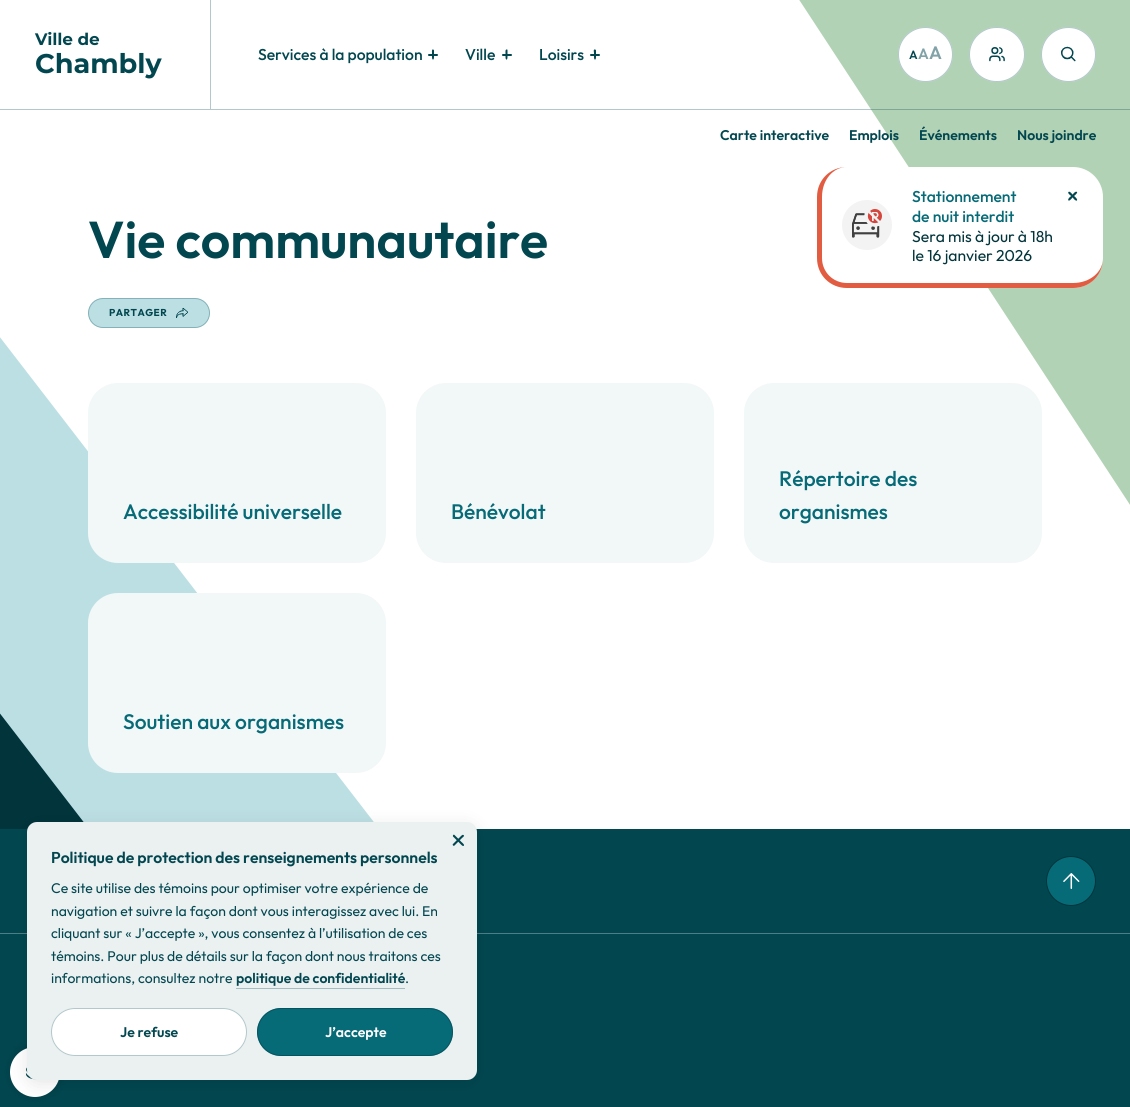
#include <cairo.h>
#include <math.h>
#include <stddef.h>


static void spaced_text(cairo_t *cr, double x, double y, const char *s, double letter, double word) {
    cairo_move_to(cr, x, y);
    while (*s) {
        char ch[5] = {0};
        int n = 0;
        do ch[n++] = *s++; while ((*s & 0xC0) == 0x80);
        cairo_show_text(cr, ch);
        cairo_rel_move_to(cr, letter + word * (*ch == ' '), 0);
    }
}

static void round_rect(cairo_t *cr, double x, double y, double w, double h, double r) {
    cairo_new_sub_path(cr);
    cairo_arc(cr, x + w - r, y + h - r, r, 0, M_PI / 2);
    cairo_arc(cr, x + r, y + h - r, r, M_PI / 2, M_PI);
    cairo_arc(cr, x + r, y + r, r, M_PI, 1.5 * M_PI);
    cairo_arc(cr, x + w - r, y + r, r, 1.5 * M_PI, 2 * M_PI);
    cairo_close_path(cr);
}

static void shadow(cairo_t *cr, double x, double y, double w, double h, double r, double blur, double alpha) {
    cairo_push_group_with_content(cr, CAIRO_CONTENT_ALPHA);
    cairo_set_operator(cr, CAIRO_OPERATOR_SOURCE);
    for (int i = 15; i >= -15 && fmin(w, h) + blur * i / 3 > 0; i -= 2) {
        double e = blur * i / 6;
        cairo_set_source_rgba(cr, 0, 0, 0, alpha * erfc((i - 1) / 8.5) / 2);
        round_rect(cr, x - e, y - e, w + 2 * e, h + 2 * e, fmax(0, fmin(r + e + blur * .6, fmin(w, h) / 2 + e)));
        cairo_fill(cr);
    }
    cairo_pattern_t *soft = cairo_pop_group(cr);
    cairo_mask(cr, soft);
    cairo_pattern_destroy(soft);
}

static void picture(cairo_t *cr, const char *path, double x, double y, double w, double h) {
    cairo_surface_t *image = cairo_image_surface_create_from_png(path);
    cairo_save(cr);
    cairo_set_source_surface(cr, image, x, y);
    cairo_rectangle(cr, x, y, w, h);
    cairo_fill(cr);
    cairo_restore(cr);
    cairo_surface_destroy(image);
}

int main(void) {
    cairo_surface_t *surface = cairo_image_surface_create(CAIRO_FORMAT_RGB24, 1130, 1107);
    cairo_t *cr = cairo_create(surface);
    cairo_font_options_t *options = cairo_font_options_create();
    cairo_font_options_set_hint_metrics(options, CAIRO_HINT_METRICS_OFF);
    cairo_font_options_set_hint_style(options, CAIRO_HINT_STYLE_NONE);
    cairo_set_font_options(cr, options);
    cairo_set_miter_limit(cr, 4);
    cairo_set_source_rgb(cr, 1, 1, 1);
    cairo_paint(cr);
    cairo_set_source_rgb(cr, 0.698, 0.824, 0.71);
    cairo_new_path(cr);
    cairo_move_to(cr, 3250, 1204);
    cairo_line_to(cr, 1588, 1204);
    cairo_line_to(cr, 420, -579);
    cairo_line_to(cr, 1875, -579);
    cairo_close_path(cr);
    cairo_fill(cr);
    cairo_set_source_rgba(cr, 0.008, 0.278, 0.314, 0.3);
    cairo_rectangle(cr, 0, 109, 1130, 1);
    cairo_fill(cr);
    picture(cr, "img1.png", 34, 31, 128, 48);
    cairo_set_source_rgb(cr, 0.702, 0.784, 0.796);
    cairo_rectangle(cr, 210, 0, 1, 109);
    cairo_fill(cr);
    cairo_select_font_face(cr, "Outfit Medium", CAIRO_FONT_SLANT_NORMAL, CAIRO_FONT_WEIGHT_NORMAL);
    cairo_set_font_size(cr, 15.7);
    cairo_set_source_rgb(cr, 0.008, 0.278, 0.314);
    cairo_move_to(cr, 258, 60);
    cairo_show_text(cr, "Services à la population");
    round_rect(cr, 428, 54, 10, 2, 1);
    cairo_fill(cr);
    cairo_new_path(cr);
    cairo_move_to(cr, 434, 50.5);
    cairo_line_to(cr, 434, 57);
    cairo_curve_to(cr, 434, 60.5, 432, 60.5, 432, 57);
    cairo_line_to(cr, 432, 53);
    cairo_curve_to(cr, 432, 52.5, 431.5, 49, 433, 49.5);
    cairo_curve_to(cr, 433.5, 49.5, 434, 50, 434, 50.5);
    cairo_close_path(cr);
    cairo_fill(cr);
    cairo_move_to(cr, 465, 60);
    cairo_show_text(cr, "Ville");
    round_rect(cr, 502, 54, 10, 2, 1);
    cairo_fill(cr);
    cairo_new_path(cr);
    cairo_move_to(cr, 507.5, 50.5);
    cairo_line_to(cr, 507.5, 57);
    cairo_curve_to(cr, 507.5, 60.5, 505.5, 60.5, 505.5, 57);
    cairo_line_to(cr, 505.5, 53);
    cairo_curve_to(cr, 505.5, 52.5, 505, 49, 507, 49.5);
    cairo_curve_to(cr, 507.5, 49.5, 507.5, 50, 507.5, 50.5);
    cairo_close_path(cr);
    cairo_fill(cr);
    cairo_move_to(cr, 539, 60);
    cairo_show_text(cr, "Loisirs");
    round_rect(cr, 590, 54, 10, 2, 1);
    cairo_fill(cr);
    cairo_new_path(cr);
    cairo_move_to(cr, 596, 50.5);
    cairo_line_to(cr, 596, 57);
    cairo_curve_to(cr, 596, 60.5, 594, 60.5, 594, 57);
    cairo_line_to(cr, 594, 53);
    cairo_curve_to(cr, 594, 52.5, 593, 49, 595, 49.5);
    cairo_curve_to(cr, 595.5, 49.5, 596, 50, 596, 50.5);
    cairo_close_path(cr);
    cairo_fill(cr);
    cairo_set_source_rgb(cr, 1, 1, 1);
    cairo_arc(cr, 925.5, 54.5, 27.5, 0, 2 * M_PI);
    cairo_fill(cr);
    cairo_arc(cr, 925.5, 54.5, 27, 0, 2 * M_PI);
    cairo_set_source_rgba(cr, 0.008, 0.278, 0.314, 0.3);
    cairo_set_line_width(cr, 1);
    cairo_stroke(cr);
    cairo_select_font_face(cr, "Outfit SemiBold", CAIRO_FONT_SLANT_NORMAL, CAIRO_FONT_WEIGHT_NORMAL);
    cairo_set_font_size(cr, 12);
    cairo_set_source_rgb(cr, 0.008, 0.278, 0.314);
    cairo_move_to(cr, 909, 59);
    cairo_show_text(cr, "A");
    cairo_set_font_size(cr, 15);
    cairo_set_source_rgb(cr, 0.506, 0.639, 0.659);
    cairo_move_to(cr, 918, 59);
    cairo_show_text(cr, "A");
    cairo_set_font_size(cr, 18);
    cairo_move_to(cr, 929, 59);
    cairo_show_text(cr, "A");
    cairo_set_source_rgb(cr, 1, 1, 1);
    round_rect(cr, 969, 27, 56, 55, 27.5);
    cairo_fill(cr);
    round_rect(cr, 969.5, 27.5, 55, 54, 27);
    cairo_set_source_rgba(cr, 0.008, 0.278, 0.314, 0.3);
    cairo_stroke(cr);
    picture(cr, "img2.png", 989, 47, 16, 15);
    cairo_set_source_rgb(cr, 1, 1, 1);
    cairo_arc(cr, 1068.5, 54.5, 27.5, 0, 2 * M_PI);
    cairo_fill(cr);
    cairo_arc(cr, 1068.5, 54.5, 27, 0, 2 * M_PI);
    cairo_set_source_rgba(cr, 0.008, 0.278, 0.314, 0.3);
    cairo_stroke(cr);
    picture(cr, "img3.png", 1061, 46, 15, 16);
    cairo_set_font_size(cr, 14);
    cairo_set_source_rgb(cr, 0.008, 0.278, 0.314);
    cairo_move_to(cr, 720, 140);
    cairo_show_text(cr, "Carte interactive");
    cairo_move_to(cr, 849, 140);
    cairo_show_text(cr, "Emplois");
    cairo_move_to(cr, 919, 140);
    cairo_show_text(cr, "Événements");
    cairo_move_to(cr, 1017, 140);
    cairo_show_text(cr, "Nous joindre");
    cairo_set_source_rgb(cr, 1, 1, 1);
    round_rect(cr, 817, 167, 286, 121, 30);
    cairo_fill(cr);
    cairo_set_source_rgb(cr, 0.882, 0.361, 0.255);
    cairo_set_fill_rule(cr, CAIRO_FILL_RULE_EVEN_ODD);
    cairo_new_path(cr);
    cairo_move_to(cr, 847, 167);
    cairo_line_to(cr, 1073, 167);
    cairo_curve_to(cr, 1090, 167, 1103, 180, 1103, 197);
    cairo_line_to(cr, 1103, 258);
    cairo_curve_to(cr, 1103, 275, 1090, 288, 1073, 288);
    cairo_line_to(cr, 847, 288);
    cairo_curve_to(cr, 830, 288, 817, 275, 817, 258);
    cairo_line_to(cr, 817, 197);
    cairo_curve_to(cr, 817, 180, 830, 167, 847, 167);
    cairo_close_path(cr);
    cairo_move_to(cr, 847, 167);
    cairo_line_to(cr, 1073, 167);
    cairo_curve_to(cr, 1090, 167, 1103, 180, 1103, 197);
    cairo_line_to(cr, 1103, 258);
    cairo_curve_to(cr, 1103, 272, 1090, 283, 1073, 283);
    cairo_line_to(cr, 847, 283);
    cairo_curve_to(cr, 833, 283, 822, 272, 822, 258);
    cairo_line_to(cr, 822, 197);
    cairo_curve_to(cr, 822, 180, 833, 167, 847, 167);
    cairo_close_path(cr);
    cairo_fill(cr);
    cairo_set_source_rgb(cr, 0.953, 0.953, 0.953);
    cairo_arc(cr, 867, 225, 25, 0, 2 * M_PI);
    cairo_fill(cr);
    picture(cr, "img4.png", 852, 209, 30, 29);
    cairo_set_fill_rule(cr, CAIRO_FILL_RULE_WINDING);
    cairo_new_path(cr);
    cairo_move_to(cr, 868, 212.5);
    cairo_line_to(cr, 869.5, 210.5);
    cairo_line_to(cr, 881, 222);
    cairo_line_to(cr, 879.5, 223.5);
    cairo_close_path(cr);
    cairo_fill(cr);
    cairo_select_font_face(cr, "Outfit Medium", CAIRO_FONT_SLANT_NORMAL, CAIRO_FONT_WEIGHT_NORMAL);
    cairo_set_font_size(cr, 15.7);
    cairo_set_source_rgb(cr, 0.027, 0.416, 0.467);
    cairo_move_to(cr, 912, 202);
    cairo_show_text(cr, "Stationnement");
    cairo_move_to(cr, 912, 222);
    cairo_show_text(cr, "de nuit interdit");
    cairo_select_font_face(cr, "Outfit", CAIRO_FONT_SLANT_NORMAL, CAIRO_FONT_WEIGHT_NORMAL);
    cairo_set_source_rgb(cr, 0.004, 0.204, 0.231);
    cairo_move_to(cr, 912, 242);
    cairo_show_text(cr, "Sera mis à jour à 18h");
    cairo_move_to(cr, 912, 261);
    cairo_show_text(cr, "le 16 janvier 2026");
    cairo_set_source_rgb(cr, 0.008, 0.278, 0.314);
    cairo_new_path(cr);
    cairo_move_to(cr, 1077, 192);
    cairo_curve_to(cr, 1078, 193, 1074, 196, 1073.5, 196.5);
    cairo_curve_to(cr, 1072.5, 197.5, 1069.5, 201.5, 1068.5, 200.5);
    cairo_curve_to(cr, 1067, 199, 1071, 196, 1072, 195.5);
    cairo_curve_to(cr, 1072.5, 194.5, 1075.5, 190.5, 1077, 192);
    cairo_close_path(cr);
    cairo_fill(cr);
    cairo_new_path(cr);
    cairo_move_to(cr, 1077, 200.5);
    cairo_curve_to(cr, 1075.5, 201.5, 1072.5, 197.5, 1072, 196.5);
    cairo_curve_to(cr, 1071, 196, 1067, 193, 1068.5, 192);
    cairo_curve_to(cr, 1069.5, 190.5, 1072.5, 194.5, 1073.5, 195.5);
    cairo_curve_to(cr, 1074, 196, 1078, 199, 1077, 200.5);
    cairo_close_path(cr);
    cairo_fill(cr);
    cairo_select_font_face(cr, "Outfit SemiBold", CAIRO_FONT_SLANT_NORMAL, CAIRO_FONT_WEIGHT_NORMAL);
    cairo_set_font_size(cr, 51.75);
    cairo_move_to(cr, 88, 258);
    cairo_show_text(cr, "Vie communautaire");
    cairo_set_source_rgb(cr, 0.737, 0.875, 0.894);
    round_rect(cr, 88, 298, 122, 30, 15);
    cairo_fill(cr);
    round_rect(cr, 88.5, 298.5, 121, 29, 14.5);
    cairo_set_source_rgba(cr, 0.008, 0.278, 0.314, 0.3);
    cairo_stroke(cr);
    cairo_select_font_face(cr, "Outfit", CAIRO_FONT_SLANT_NORMAL, CAIRO_FONT_WEIGHT_BOLD);
    cairo_set_font_size(cr, 10);
    cairo_set_source_rgb(cr, 0.008, 0.278, 0.314);
    spaced_text(cr, 109, 316, "PARTAGER", 0.5, 0);
    picture(cr, "img5.png", 176, 307, 12, 11);
    cairo_save(cr);
    cairo_rectangle(cr, 0, 329, 1054, 500);
    cairo_clip(cr);
    cairo_set_source_rgb(cr, 0.737, 0.875, 0.894);
    cairo_new_path(cr);
    cairo_move_to(cr, 1054, 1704);
    cairo_line_to(cr, -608, 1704);
    cairo_line_to(cr, -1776, -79);
    cairo_line_to(cr, -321, -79);
    cairo_close_path(cr);
    cairo_fill(cr);
    cairo_restore(cr);
    cairo_set_source_rgb(cr, 0.949, 0.965, 0.969);
    round_rect(cr, 88, 383, 298, 180, 30);
    cairo_fill(cr);
    cairo_select_font_face(cr, "Outfit Medium", CAIRO_FONT_SLANT_NORMAL, CAIRO_FONT_WEIGHT_NORMAL);
    cairo_set_font_size(cr, 21);
    cairo_set_source_rgb(cr, 0.027, 0.416, 0.467);
    cairo_move_to(cr, 123, 519);
    cairo_show_text(cr, "Accessibilité universelle");
    cairo_set_source_rgb(cr, 0.949, 0.965, 0.969);
    round_rect(cr, 416, 383, 298, 180, 30);
    cairo_fill(cr);
    cairo_set_source_rgb(cr, 0.027, 0.416, 0.467);
    cairo_move_to(cr, 451, 519);
    cairo_show_text(cr, "Bénévolat");
    cairo_set_source_rgb(cr, 0.949, 0.965, 0.969);
    round_rect(cr, 744, 383, 298, 180, 30);
    cairo_fill(cr);
    cairo_set_source_rgb(cr, 0.027, 0.416, 0.467);
    cairo_move_to(cr, 779, 486);
    cairo_show_text(cr, "Répertoire des");
    cairo_move_to(cr, 779, 519);
    cairo_show_text(cr, "organismes");
    cairo_save(cr);
    cairo_rectangle(cr, 0, 576, 620, 253);
    cairo_clip(cr);
    cairo_set_source_rgb(cr, 0.004, 0.204, 0.231);
    cairo_new_path(cr);
    cairo_move_to(cr, 620, 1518);
    cairo_line_to(cr, -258, 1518);
    cairo_line_to(cr, -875, 576);
    cairo_line_to(cr, -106, 576);
    cairo_close_path(cr);
    cairo_fill(cr);
    cairo_restore(cr);
    cairo_set_source_rgb(cr, 0.949, 0.965, 0.969);
    round_rect(cr, 88, 593, 298, 180, 30);
    cairo_fill(cr);
    cairo_set_source_rgb(cr, 0.027, 0.416, 0.467);
    cairo_move_to(cr, 123, 729);
    cairo_show_text(cr, "Soutien aux organismes");
    cairo_set_source_rgb(cr, 0.008, 0.278, 0.314);
    cairo_rectangle(cr, 0, 829, 1130, 278);
    cairo_fill(cr);
    cairo_set_source_rgb(cr, 0.306, 0.494, 0.522);
    cairo_rectangle(cr, 0, 933, 1130, 1);
    cairo_fill(cr);
    cairo_set_source_rgb(cr, 0.027, 0.416, 0.467);
    cairo_arc(cr, 1071, 881, 24.5, 0, 2 * M_PI);
    cairo_fill_preserve(cr);
    cairo_set_source_rgb(cr, 0.004, 0.204, 0.231);
    cairo_stroke(cr);
    picture(cr, "img6.png", 1063, 873, 17, 16);
    cairo_set_source_rgb(cr, 0, 0, 0);
    shadow(cr, 10, 1047, 50, 50, 25, 5, 0.15);
    cairo_set_source_rgb(cr, 1, 1, 1);
    cairo_arc(cr, 35, 1072, 25, 0, 2 * M_PI);
    cairo_fill(cr);
    picture(cr, "img7.png", 25, 1067, 12, 13);
    cairo_set_source_rgb(cr, 0, 0, 0);
    shadow(cr, 27, 826, 450, 258, 10, 9, 0.1);
    cairo_set_source_rgb(cr, 1, 1, 1);
    round_rect(cr, 27, 822, 450, 258, 10);
    cairo_fill(cr);
    cairo_set_source_rgba(cr, 0.008, 0.278, 0.314, 0.08);
    round_rect(cr, 27, 822, 450, 258, 10);
    cairo_fill(cr);
    cairo_set_source_rgb(cr, 0.008, 0.278, 0.314);
    cairo_new_path(cr);
    cairo_move_to(cr, 454.5, 835);
    cairo_line_to(cr, 460.5, 841);
    cairo_curve_to(cr, 461, 842, 464.5, 844, 464, 845.5);
    cairo_curve_to(cr, 463, 847, 461, 844.5, 460.5, 844);
    cairo_line_to(cr, 453, 836.5);
    cairo_curve_to(cr, 452.5, 835.5, 453.5, 834, 454.5, 835);
    cairo_close_path(cr);
    cairo_fill(cr);
    cairo_new_path(cr);
    cairo_move_to(cr, 453, 844);
    cairo_line_to(cr, 459, 838);
    cairo_curve_to(cr, 460, 837.5, 462, 834, 463.5, 835);
    cairo_curve_to(cr, 465, 836, 462.5, 837.5, 462, 838);
    cairo_line_to(cr, 454.5, 845.5);
    cairo_curve_to(cr, 453.5, 846.5, 452, 845, 453, 844);
    cairo_close_path(cr);
    cairo_fill(cr);
    cairo_select_font_face(cr, "Outfit SemiBold", CAIRO_FONT_SLANT_NORMAL, CAIRO_FONT_WEIGHT_NORMAL);
    cairo_set_font_size(cr, 15.7);
    cairo_move_to(cr, 51, 863);
    cairo_show_text(cr, "Politique de protection des renseignements personnels");
    cairo_select_font_face(cr, "Outfit", CAIRO_FONT_SLANT_NORMAL, CAIRO_FONT_WEIGHT_NORMAL);
    cairo_set_font_size(cr, 14);
    cairo_move_to(cr, 51, 893);
    cairo_show_text(cr, "Ce site utilise des témoins pour optimiser votre expérience de");
    cairo_move_to(cr, 51, 916);
    cairo_show_text(cr, "navigation et suivre la façon dont vous interagissez avec lui. En");
    cairo_move_to(cr, 51, 938);
    cairo_show_text(cr, "cliquant sur « J’accepte », vous consentez à l’utilisation de ces");
    cairo_move_to(cr, 51, 961);
    cairo_show_text(cr, "témoins. Pour plus de détails sur la façon dont nous traitons ces");
    cairo_move_to(cr, 51, 983);
    cairo_show_text(cr, "informations, consultez notre");
    cairo_select_font_face(cr, "Outfit SemiBold", CAIRO_FONT_SLANT_NORMAL, CAIRO_FONT_WEIGHT_NORMAL);
    cairo_move_to(cr, 236, 983);
    cairo_show_text(cr, "politique de confidentialité");
    cairo_set_source_rgb(cr, 0.647, 0.741, 0.757);
    cairo_rectangle(cr, 236, 988, 169, 1);
    cairo_fill(cr);
    cairo_select_font_face(cr, "Outfit", CAIRO_FONT_SLANT_NORMAL, CAIRO_FONT_WEIGHT_NORMAL);
    cairo_set_source_rgb(cr, 0.008, 0.278, 0.314);
    cairo_move_to(cr, 405, 983);
    cairo_show_text(cr, ".");
    cairo_set_source_rgb(cr, 1, 1, 1);
    round_rect(cr, 51, 1008, 196, 48, 24);
    cairo_fill(cr);
    round_rect(cr, 51.5, 1008.5, 195, 47, 23.5);
    cairo_set_source_rgba(cr, 0.008, 0.278, 0.314, 0.3);
    cairo_stroke(cr);
    cairo_select_font_face(cr, "Outfit SemiBold", CAIRO_FONT_SLANT_NORMAL, CAIRO_FONT_WEIGHT_NORMAL);
    cairo_set_source_rgb(cr, 0.008, 0.278, 0.314);
    cairo_move_to(cr, 120, 1037);
    cairo_show_text(cr, "Je refuse");
    cairo_set_source_rgb(cr, 0.027, 0.416, 0.467);
    round_rect(cr, 257, 1008, 196, 48, 24);
    cairo_fill(cr);
    round_rect(cr, 257.5, 1008.5, 195, 47, 23.5);
    cairo_set_source_rgba(cr, 0.008, 0.278, 0.314, 0.6);
    cairo_stroke(cr);
    cairo_set_source_rgb(cr, 1, 1, 1);
    cairo_move_to(cr, 325, 1037);
    cairo_show_text(cr, "J’accepte");
    cairo_surface_write_to_png(surface, "page.png");
    cairo_font_options_destroy(options);
    cairo_destroy(cr);
    cairo_surface_destroy(surface);
    return 0;
}
